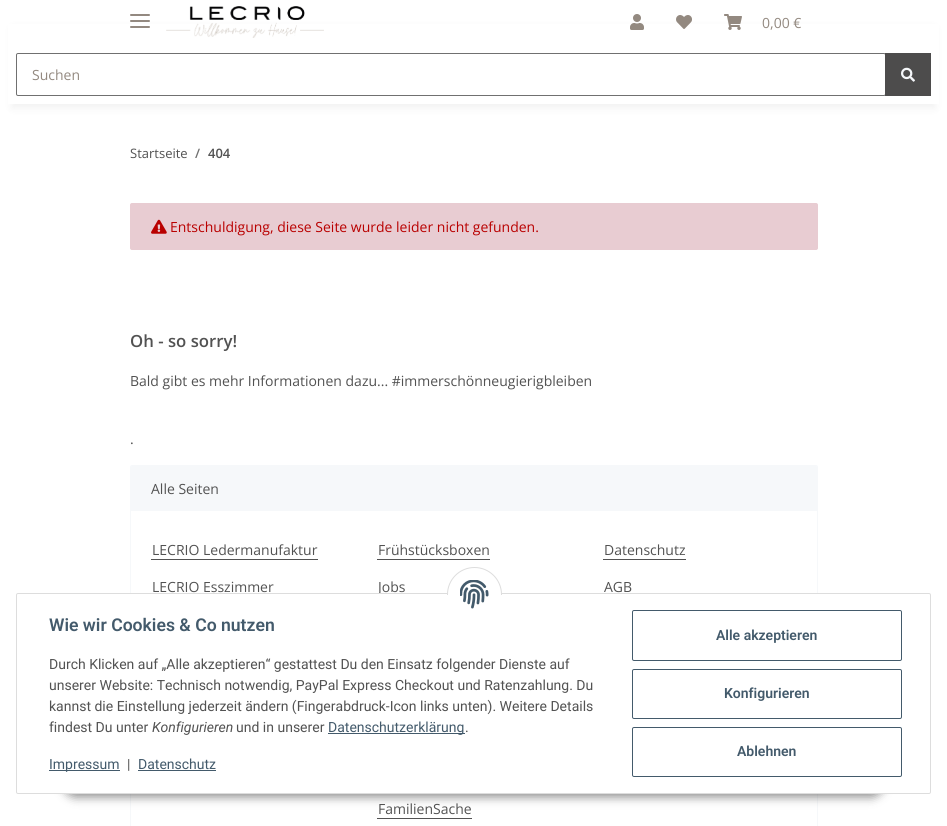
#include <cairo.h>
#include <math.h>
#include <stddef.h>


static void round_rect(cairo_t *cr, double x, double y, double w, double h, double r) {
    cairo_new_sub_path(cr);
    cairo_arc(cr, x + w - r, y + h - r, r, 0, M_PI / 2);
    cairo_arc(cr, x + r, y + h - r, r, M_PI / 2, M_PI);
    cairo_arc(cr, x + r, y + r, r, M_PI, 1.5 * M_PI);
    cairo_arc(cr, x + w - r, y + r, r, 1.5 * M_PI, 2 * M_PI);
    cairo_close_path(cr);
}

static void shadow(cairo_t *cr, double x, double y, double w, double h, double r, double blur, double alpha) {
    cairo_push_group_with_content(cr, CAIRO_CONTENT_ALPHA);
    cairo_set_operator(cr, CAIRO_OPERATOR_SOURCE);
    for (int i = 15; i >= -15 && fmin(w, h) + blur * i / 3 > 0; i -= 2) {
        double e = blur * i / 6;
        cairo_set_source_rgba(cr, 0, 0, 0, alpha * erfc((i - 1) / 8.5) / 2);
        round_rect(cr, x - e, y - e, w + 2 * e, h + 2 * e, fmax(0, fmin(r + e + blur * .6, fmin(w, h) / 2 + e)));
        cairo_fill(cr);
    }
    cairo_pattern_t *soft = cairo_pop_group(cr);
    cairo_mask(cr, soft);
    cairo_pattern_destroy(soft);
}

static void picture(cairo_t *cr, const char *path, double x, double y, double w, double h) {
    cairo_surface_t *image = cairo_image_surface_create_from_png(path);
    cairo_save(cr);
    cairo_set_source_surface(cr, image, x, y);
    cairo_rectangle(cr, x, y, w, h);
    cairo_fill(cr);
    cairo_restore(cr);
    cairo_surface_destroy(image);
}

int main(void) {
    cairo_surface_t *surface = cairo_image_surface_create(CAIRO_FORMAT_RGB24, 947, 826);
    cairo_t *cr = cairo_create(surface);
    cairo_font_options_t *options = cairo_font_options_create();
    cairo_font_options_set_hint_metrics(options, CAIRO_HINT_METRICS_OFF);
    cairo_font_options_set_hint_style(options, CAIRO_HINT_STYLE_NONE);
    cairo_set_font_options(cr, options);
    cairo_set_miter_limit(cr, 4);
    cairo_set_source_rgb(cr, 1, 1, 1);
    cairo_paint(cr);
    cairo_set_source_rgb(cr, 0, 0, 0);
    shadow(cr, 12, 28, 923, 80, 0, 4.5, 0.06);
    cairo_set_source_rgb(cr, 1, 1, 1);
    cairo_rectangle(cr, 8, 24, 931, 80);
    cairo_fill(cr);
    cairo_set_source_rgb(cr, 0.576, 0.537, 0.502);
    round_rect(cr, 130, 20, 20, 2, 1);
    cairo_fill(cr);
    round_rect(cr, 130, 14, 20, 2, 1);
    cairo_fill(cr);
    round_rect(cr, 130, 26, 20, 2, 1);
    cairo_fill(cr);
    picture(cr, "img1.png", 166, 6, 158, 32);
    picture(cr, "img2.png", 630, 14, 14, 16);
    picture(cr, "img3.png", 676, 15, 16, 14);
    picture(cr, "img4.png", 724, 14, 18, 16);
    cairo_select_font_face(cr, "Open Sans", CAIRO_FONT_SLANT_NORMAL, CAIRO_FONT_WEIGHT_NORMAL);
    cairo_set_font_size(cr, 14);
    cairo_move_to(cr, 762, 28);
    cairo_show_text(cr, "0,00 €");
    round_rect(cr, 16.5, 53.5, 869, 42, 1.5);
    cairo_set_source_rgb(cr, 0.439, 0.439, 0.439);
    cairo_set_line_width(cr, 1);
    cairo_stroke(cr);
    cairo_set_source_rgb(cr, 0.576, 0.537, 0.502);
    cairo_move_to(cr, 32, 80);
    cairo_show_text(cr, "Suchen");
    cairo_set_source_rgb(cr, 0.302, 0.298, 0.298);
    cairo_rectangle(cr, 885, 53, 46, 43);
    cairo_fill(cr);
    picture(cr, "img5.png", 901, 67, 14, 15);
    cairo_set_font_size(cr, 13);
    cairo_set_source_rgb(cr, 0.322, 0.322, 0.322);
    cairo_move_to(cr, 130, 158);
    cairo_show_text(cr, "Startseite");
    cairo_select_font_face(cr, "Open Sans SemiBold", CAIRO_FONT_SLANT_NORMAL, CAIRO_FONT_WEIGHT_NORMAL);
    cairo_set_source_rgb(cr, 0.439, 0.439, 0.439);
    cairo_move_to(cr, 195, 158);
    cairo_show_text(cr, "/");
    cairo_set_source_rgb(cr, 0.322, 0.322, 0.322);
    cairo_move_to(cr, 208, 158);
    cairo_show_text(cr, "404");
    cairo_set_source_rgb(cr, 0.91, 0.8, 0.824);
    round_rect(cr, 130.5, 203.5, 687, 46, 1.5);
    cairo_fill_preserve(cr);
    cairo_stroke(cr);
    picture(cr, "img6.png", 151, 219, 16, 15);
    cairo_select_font_face(cr, "Open Sans", CAIRO_FONT_SLANT_NORMAL, CAIRO_FONT_WEIGHT_NORMAL);
    cairo_set_font_size(cr, 14);
    cairo_set_source_rgb(cr, 0.725, 0, 0);
    cairo_move_to(cr, 170, 232);
    cairo_show_text(cr, "Entschuldigung, diese Seite wurde leider nicht gefunden.");
    cairo_select_font_face(cr, "Open Sans SemiBold", CAIRO_FONT_SLANT_NORMAL, CAIRO_FONT_WEIGHT_NORMAL);
    cairo_set_font_size(cr, 16.75);
    cairo_set_source_rgb(cr, 0.322, 0.322, 0.322);
    cairo_move_to(cr, 130, 347);
    cairo_show_text(cr, "Oh - so sorry!");
    cairo_select_font_face(cr, "Open Sans", CAIRO_FONT_SLANT_NORMAL, CAIRO_FONT_WEIGHT_NORMAL);
    cairo_set_font_size(cr, 14);
    cairo_move_to(cr, 130, 386);
    cairo_show_text(cr, "Bald gibt es mehr Informationen dazu... #immerschönneugierigbleiben");
    cairo_move_to(cr, 130, 444);
    cairo_show_text(cr, ".");
    round_rect(cr, 130.5, 465.5, 687, 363, 1.5);
    cairo_set_source_rgb(cr, 0.961, 0.969, 0.98);
    cairo_stroke(cr);
    cairo_new_path(cr);
    cairo_move_to(cr, 132, 466);
    cairo_line_to(cr, 816, 466);
    cairo_curve_to(cr, 816.5, 466, 817, 466.5, 817, 467);
    cairo_line_to(cr, 817, 511);
    cairo_line_to(cr, 131, 511);
    cairo_line_to(cr, 131, 467);
    cairo_curve_to(cr, 131, 466.5, 131.5, 466, 132, 466);
    cairo_close_path(cr);
    cairo_fill(cr);
    cairo_set_source_rgb(cr, 0.322, 0.322, 0.322);
    cairo_move_to(cr, 151, 494);
    cairo_show_text(cr, "Alle Seiten");
    cairo_move_to(cr, 152, 555);
    cairo_show_text(cr, "LECRIO Ledermanufaktur");
    cairo_rectangle(cr, 151, 559, 167, 1);
    cairo_fill(cr);
    cairo_move_to(cr, 152, 592);
    cairo_show_text(cr, "LECRIO Esszimmer");
    cairo_move_to(cr, 378, 555);
    cairo_show_text(cr, "Frühstücksboxen");
    cairo_rectangle(cr, 377, 559, 113, 1);
    cairo_fill(cr);
    cairo_move_to(cr, 378, 592);
    cairo_show_text(cr, "Jobs");
    cairo_move_to(cr, 604, 555);
    cairo_show_text(cr, "Datenschutz");
    cairo_rectangle(cr, 603, 559, 83, 1);
    cairo_fill(cr);
    cairo_move_to(cr, 604, 592);
    cairo_show_text(cr, "AGB");
    cairo_move_to(cr, 378, 814);
    cairo_show_text(cr, "FamilienSache");
    cairo_rectangle(cr, 377, 818, 95, 1);
    cairo_fill(cr);
    cairo_set_source_rgb(cr, 0, 0, 0);
    shadow(cr, 63, 765, 821, 32, 16, 5, 0.45);
    cairo_set_source_rgb(cr, 1, 1, 1);
    round_rect(cr, 16.5, 593.5, 914, 200, 1.5);
    cairo_fill_preserve(cr);
    cairo_set_source_rgb(cr, 0.867, 0.867, 0.867);
    cairo_stroke(cr);
    cairo_set_source_rgb(cr, 1, 1, 1);
    cairo_arc(cr, 474.5, 594.5, 27, 0, 2 * M_PI);
    cairo_fill_preserve(cr);
    cairo_set_source_rgb(cr, 0.867, 0.867, 0.867);
    cairo_stroke(cr);
    cairo_set_source_rgb(cr, 1, 1, 1);
    cairo_rectangle(cr, 447, 595, 55, 27);
    cairo_fill(cr);
    picture(cr, "img7.png", 460, 580, 29, 29);
    cairo_select_font_face(cr, "Roboto SemiBold", CAIRO_FONT_SLANT_NORMAL, CAIRO_FONT_WEIGHT_NORMAL);
    cairo_set_font_size(cr, 17.6);
    cairo_set_source_rgb(cr, 0.263, 0.353, 0.42);
    cairo_move_to(cr, 49, 631);
    cairo_show_text(cr, "Wie wir Cookies & Co nutzen");
    cairo_select_font_face(cr, "Roboto", CAIRO_FONT_SLANT_NORMAL, CAIRO_FONT_WEIGHT_NORMAL);
    cairo_set_font_size(cr, 14);
    cairo_set_source_rgb(cr, 0.322, 0.322, 0.322);
    cairo_move_to(cr, 49, 669);
    cairo_show_text(cr, "Durch Klicken auf „Alle akzeptieren“ gestattest Du den Einsatz folgender Dienste auf");
    cairo_move_to(cr, 49, 690);
    cairo_show_text(cr, "unserer Website: Technisch notwendig, PayPal Express Checkout und Ratenzahlung. Du");
    cairo_move_to(cr, 49, 711);
    cairo_show_text(cr, "kannst die Einstellung jederzeit ändern (Fingerabdruck-Icon links unten). Weitere Details");
    cairo_move_to(cr, 49, 732);
    cairo_show_text(cr, "findest Du unter");
    cairo_select_font_face(cr, "Roboto", CAIRO_FONT_SLANT_ITALIC, CAIRO_FONT_WEIGHT_NORMAL);
    cairo_move_to(cr, 152, 732);
    cairo_show_text(cr, "Konfigurieren");
    cairo_select_font_face(cr, "Roboto", CAIRO_FONT_SLANT_NORMAL, CAIRO_FONT_WEIGHT_NORMAL);
    cairo_move_to(cr, 236, 732);
    cairo_show_text(cr, "und in unserer");
    cairo_set_source_rgb(cr, 0.263, 0.353, 0.42);
    cairo_rectangle(cr, 328, 733, 137, 1);
    cairo_fill(cr);
    cairo_move_to(cr, 328, 732);
    cairo_show_text(cr, "Datenschutzerklärung");
    cairo_set_source_rgb(cr, 0.322, 0.322, 0.322);
    cairo_move_to(cr, 465, 732);
    cairo_show_text(cr, ".");
    cairo_set_source_rgb(cr, 0.263, 0.353, 0.42);
    cairo_rectangle(cr, 49, 770, 71, 1);
    cairo_fill(cr);
    cairo_move_to(cr, 49, 769);
    cairo_show_text(cr, "Impressum");
    cairo_set_source_rgb(cr, 0.322, 0.322, 0.322);
    cairo_move_to(cr, 127, 769);
    cairo_show_text(cr, "|");
    cairo_set_source_rgb(cr, 0.263, 0.353, 0.42);
    cairo_move_to(cr, 138, 769);
    cairo_show_text(cr, "Datenschutz");
    cairo_rectangle(cr, 138, 770, 78, 1);
    cairo_fill(cr);
    round_rect(cr, 632.5, 610.5, 269, 50, 1.5);
    cairo_stroke(cr);
    cairo_select_font_face(cr, "Roboto SemiBold", CAIRO_FONT_SLANT_NORMAL, CAIRO_FONT_WEIGHT_NORMAL);
    cairo_move_to(cr, 716, 640);
    cairo_show_text(cr, "Alle akzeptieren");
    round_rect(cr, 632.5, 669.5, 269, 49, 1.5);
    cairo_stroke(cr);
    cairo_move_to(cr, 724, 698);
    cairo_show_text(cr, "Konfigurieren");
    round_rect(cr, 632.5, 727.5, 269, 49, 1.5);
    cairo_stroke(cr);
    cairo_move_to(cr, 737, 756);
    cairo_show_text(cr, "Ablehnen");
    cairo_surface_write_to_png(surface, "page.png");
    cairo_font_options_destroy(options);
    cairo_destroy(cr);
    cairo_surface_destroy(surface);
    return 0;
}
